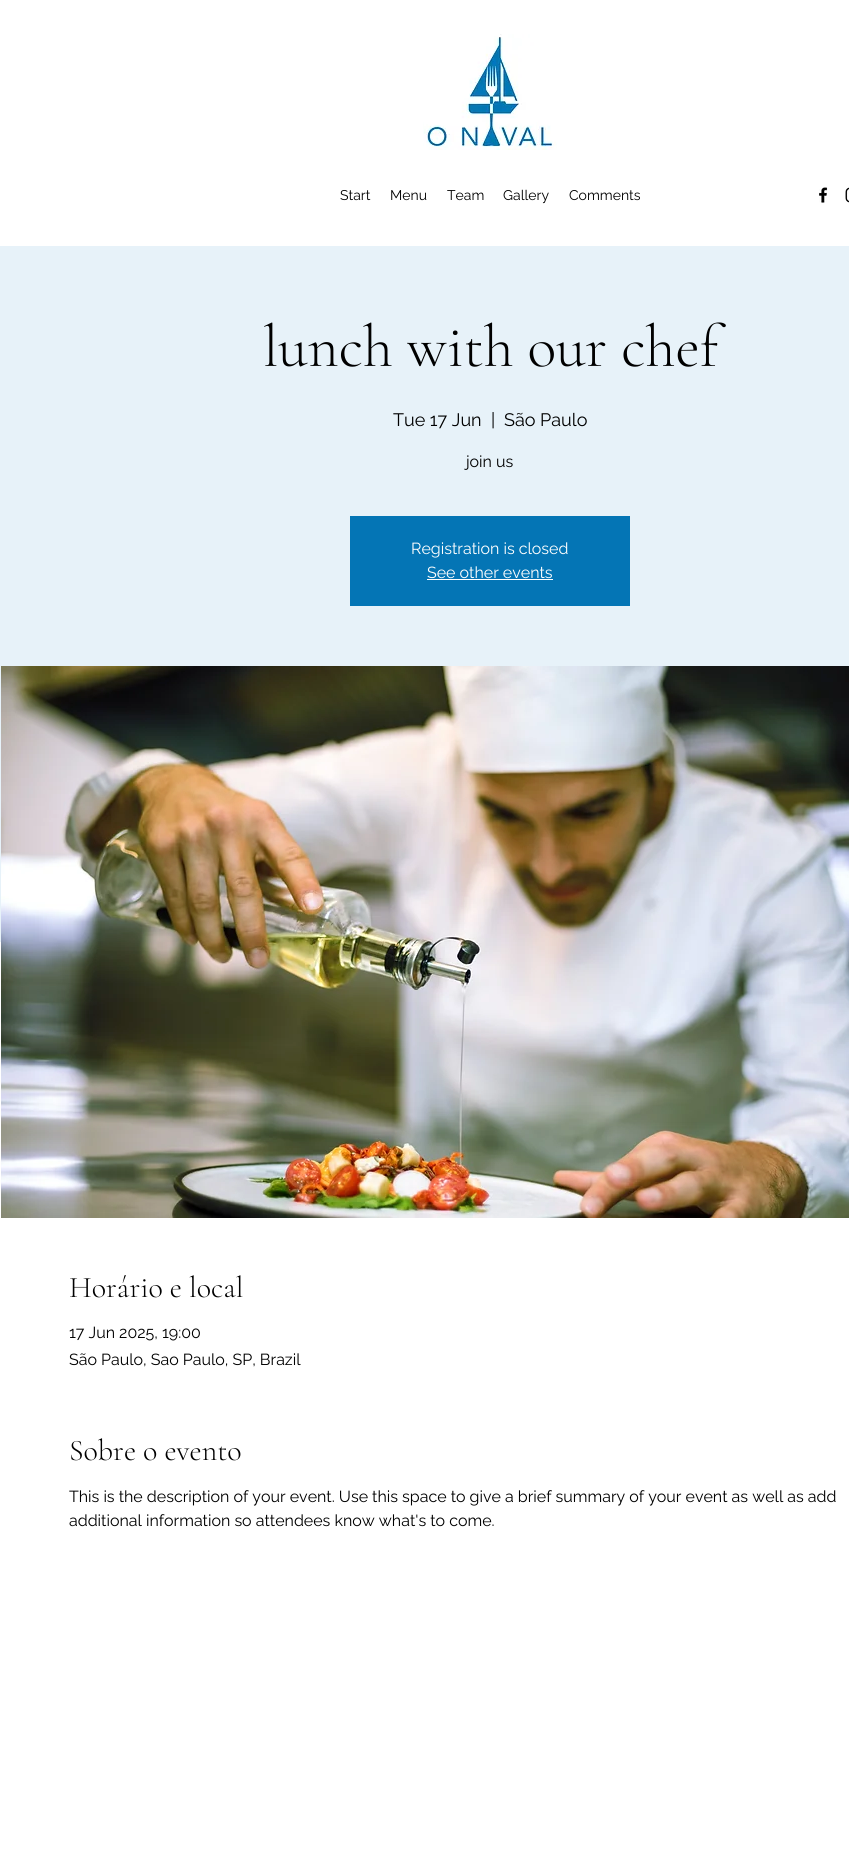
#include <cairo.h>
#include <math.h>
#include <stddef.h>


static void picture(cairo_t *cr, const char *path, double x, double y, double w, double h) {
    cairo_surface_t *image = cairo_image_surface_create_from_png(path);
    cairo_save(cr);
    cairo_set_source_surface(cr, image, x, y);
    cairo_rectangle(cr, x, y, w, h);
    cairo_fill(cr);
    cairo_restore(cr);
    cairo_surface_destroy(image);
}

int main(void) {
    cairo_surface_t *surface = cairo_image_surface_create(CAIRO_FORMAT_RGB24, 849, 1867);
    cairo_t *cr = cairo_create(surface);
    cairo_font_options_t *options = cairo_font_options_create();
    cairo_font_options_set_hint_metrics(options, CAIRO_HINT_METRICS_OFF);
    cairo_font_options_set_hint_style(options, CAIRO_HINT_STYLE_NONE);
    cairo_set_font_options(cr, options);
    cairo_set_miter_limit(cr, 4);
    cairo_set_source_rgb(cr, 1, 1, 1);
    cairo_paint(cr);
    picture(cr, "img1.png", 423, 34, 134, 116);
    cairo_select_font_face(cr, "Raleway", CAIRO_FONT_SLANT_NORMAL, CAIRO_FONT_WEIGHT_NORMAL);
    cairo_set_font_size(cr, 14);
    cairo_set_source_rgb(cr, 0, 0, 0);
    cairo_move_to(cr, 340, 200);
    cairo_show_text(cr, "Start");
    cairo_move_to(cr, 390, 200);
    cairo_show_text(cr, "Menu");
    cairo_move_to(cr, 447, 200);
    cairo_show_text(cr, "Team");
    cairo_move_to(cr, 503, 200);
    cairo_show_text(cr, "Gallery");
    cairo_move_to(cr, 569, 200);
    cairo_show_text(cr, "Comments");
    picture(cr, "img2.png", 819, 187, 9, 16);
    picture(cr, "img3.png", 845, 187, 4, 16);
    cairo_set_source_rgb(cr, 0.906, 0.949, 0.973);
    cairo_rectangle(cr, 0, 246, 849, 696);
    cairo_fill(cr);
    cairo_select_font_face(cr, "Cormorant Garamond Light", CAIRO_FONT_SLANT_NORMAL, CAIRO_FONT_WEIGHT_NORMAL);
    cairo_set_font_size(cr, 60);
    cairo_set_source_rgb(cr, 0, 0, 0);
    cairo_move_to(cr, 263, 366);
    cairo_show_text(cr, "lunch with our chef");
    cairo_select_font_face(cr, "Raleway", CAIRO_FONT_SLANT_NORMAL, CAIRO_FONT_WEIGHT_NORMAL);
    cairo_set_font_size(cr, 18);
    cairo_move_to(cr, 393, 426);
    cairo_show_text(cr, "Tue 17 Jun");
    cairo_move_to(cr, 491, 426);
    cairo_show_text(cr, "|");
    cairo_move_to(cr, 504, 426);
    cairo_show_text(cr, "São Paulo");
    cairo_set_font_size(cr, 16);
    cairo_move_to(cr, 466, 467);
    cairo_show_text(cr, "join us");
    cairo_set_source_rgb(cr, 0.016, 0.459, 0.71);
    cairo_rectangle(cr, 350, 516, 280, 90);
    cairo_fill(cr);
    cairo_set_source_rgb(cr, 1, 1, 1);
    cairo_move_to(cr, 411, 554);
    cairo_show_text(cr, "Registration is closed");
    cairo_move_to(cr, 427, 578);
    cairo_show_text(cr, "See other events");
    cairo_rectangle(cr, 427, 579, 126, 1);
    cairo_fill(cr);
    picture(cr, "img4.png", 1, 666, 848, 552);
    cairo_select_font_face(cr, "Cormorant Garamond Light", CAIRO_FONT_SLANT_NORMAL, CAIRO_FONT_WEIGHT_NORMAL);
    cairo_set_font_size(cr, 30);
    cairo_set_source_rgb(cr, 0, 0, 0);
    cairo_move_to(cr, 69, 1297);
    cairo_show_text(cr, "Horário e local");
    cairo_select_font_face(cr, "Raleway", CAIRO_FONT_SLANT_NORMAL, CAIRO_FONT_WEIGHT_NORMAL);
    cairo_set_font_size(cr, 16);
    cairo_move_to(cr, 69, 1338);
    cairo_show_text(cr, "17 Jun 2025, 19:00");
    cairo_move_to(cr, 69, 1365);
    cairo_show_text(cr, "São Paulo, Sao Paulo, SP, Brazil");
    cairo_select_font_face(cr, "Cormorant Garamond Light", CAIRO_FONT_SLANT_NORMAL, CAIRO_FONT_WEIGHT_NORMAL);
    cairo_set_font_size(cr, 30);
    cairo_move_to(cr, 69, 1460);
    cairo_show_text(cr, "Sobre o evento");
    cairo_select_font_face(cr, "Raleway", CAIRO_FONT_SLANT_NORMAL, CAIRO_FONT_WEIGHT_NORMAL);
    cairo_set_font_size(cr, 16);
    cairo_move_to(cr, 69, 1502);
    cairo_show_text(cr, "This is the description of your event. Use this space to give a brief summary of your event as well as add");
    cairo_move_to(cr, 69, 1526);
    cairo_show_text(cr, "additional information so attendees know what's to come.");
    cairo_surface_write_to_png(surface, "page.png");
    cairo_font_options_destroy(options);
    cairo_destroy(cr);
    cairo_surface_destroy(surface);
    return 0;
}
